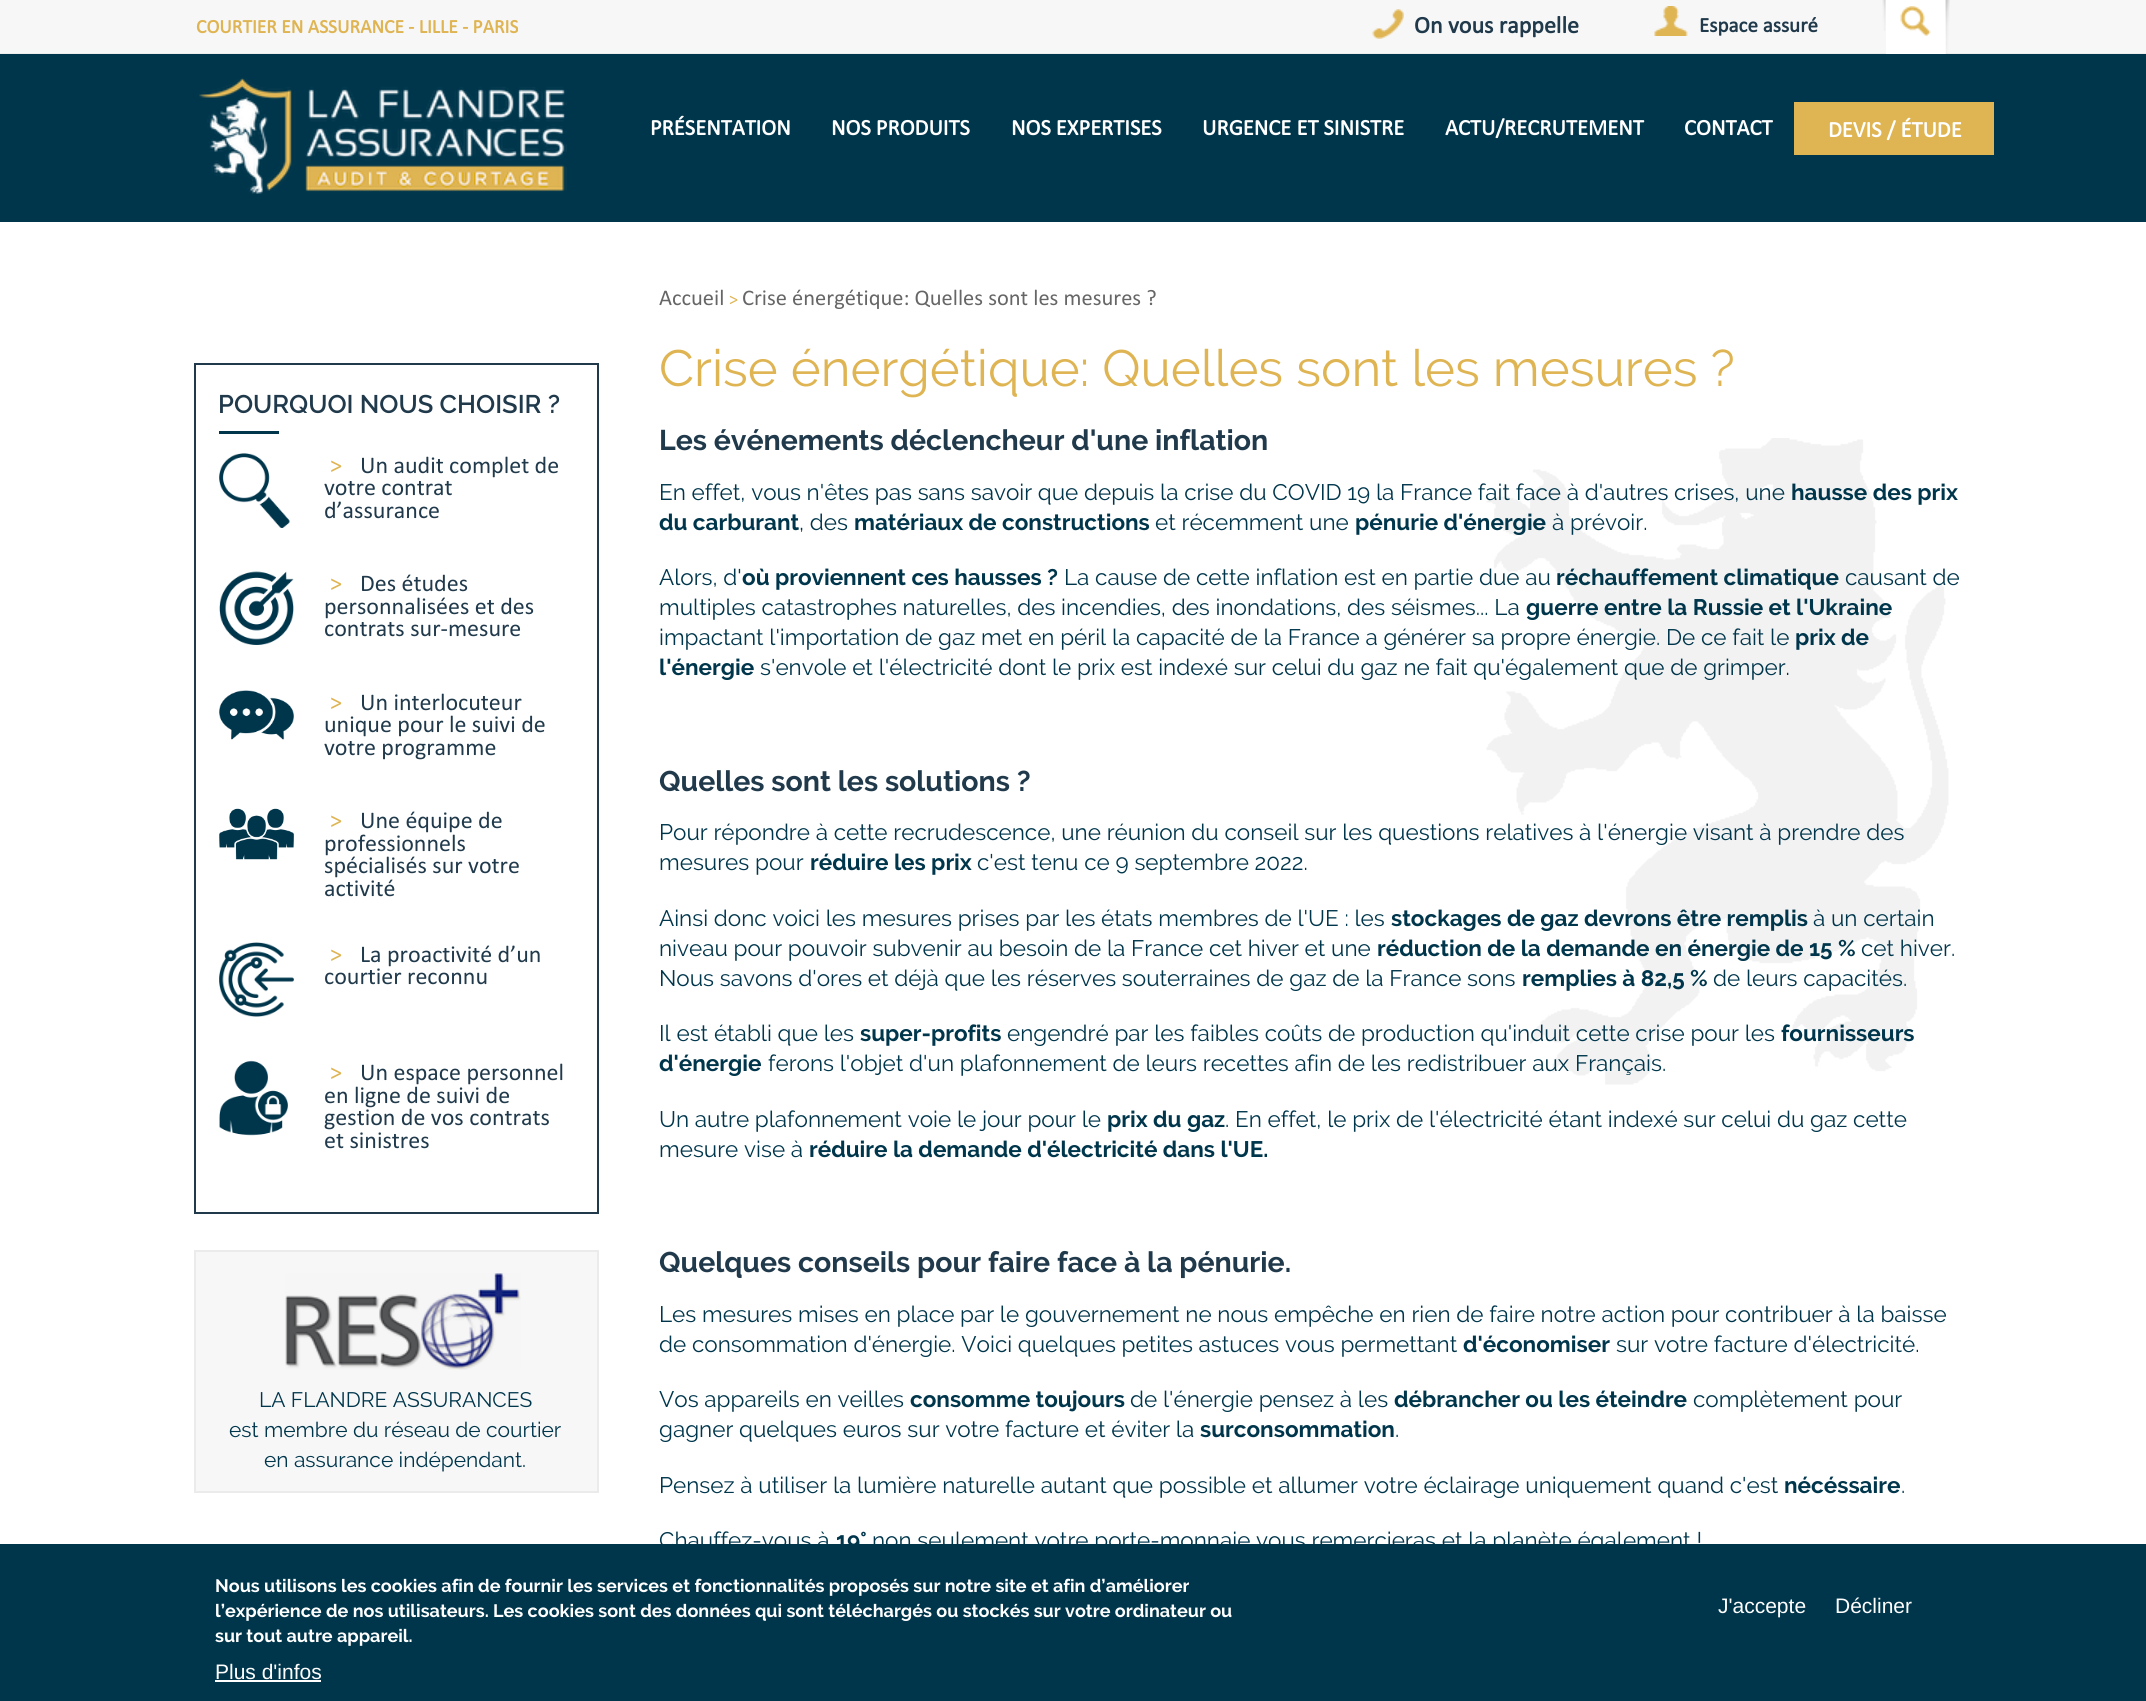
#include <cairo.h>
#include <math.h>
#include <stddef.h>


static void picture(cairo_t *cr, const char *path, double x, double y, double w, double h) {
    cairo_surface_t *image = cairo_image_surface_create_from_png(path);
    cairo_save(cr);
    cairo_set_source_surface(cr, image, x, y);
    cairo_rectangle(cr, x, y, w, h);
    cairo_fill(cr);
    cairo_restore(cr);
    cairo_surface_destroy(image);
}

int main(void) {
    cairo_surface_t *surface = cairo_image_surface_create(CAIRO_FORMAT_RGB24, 2146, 1701);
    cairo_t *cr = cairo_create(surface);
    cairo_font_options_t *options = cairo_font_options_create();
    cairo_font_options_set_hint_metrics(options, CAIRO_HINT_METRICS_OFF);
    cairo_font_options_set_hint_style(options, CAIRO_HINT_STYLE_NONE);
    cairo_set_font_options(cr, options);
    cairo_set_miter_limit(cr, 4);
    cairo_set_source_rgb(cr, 1, 1, 1);
    cairo_paint(cr);
    cairo_set_source_rgb(cr, 0.965, 0.965, 0.965);
    cairo_rectangle(cr, 0, 0, 2146, 53);
    cairo_fill(cr);
    cairo_set_source_rgb(cr, 0.929, 0.929, 0.929);
    cairo_rectangle(cr, 0, 53, 2146, 1);
    cairo_fill(cr);
    cairo_select_font_face(cr, "Calibri", CAIRO_FONT_SLANT_NORMAL, CAIRO_FONT_WEIGHT_BOLD);
    cairo_set_font_size(cr, 19.5);
    cairo_set_source_rgb(cr, 0.875, 0.706, 0.325);
    cairo_move_to(cr, 196, 33);
    cairo_show_text(cr, "COURTIER EN ASSURANCE - LILLE - PARIS");
    picture(cr, "img1.png", 1372, 9, 32, 30);
    cairo_set_font_size(cr, 24);
    cairo_set_source_rgb(cr, 0.125, 0.227, 0.298);
    cairo_move_to(cr, 1414, 33);
    cairo_show_text(cr, "On vous rappelle");
    picture(cr, "img2.png", 1654, 6, 34, 30);
    cairo_set_font_size(cr, 21);
    cairo_move_to(cr, 1699, 32);
    cairo_show_text(cr, "Espace assuré");
    picture(cr, "img3.png", 1882, 0, 4, 31);
    cairo_set_source_rgb(cr, 1, 1, 1);
    cairo_rectangle(cr, 1886, 0, 60, 54);
    cairo_fill(cr);
    picture(cr, "img4.png", 1900, 6, 31, 30);
    picture(cr, "img5.png", 1945, 0, 5, 54);
    cairo_set_source_rgb(cr, 0, 0.212, 0.298);
    cairo_rectangle(cr, 0, 54, 2146, 168);
    cairo_fill(cr);
    picture(cr, "img6.png", 199, 78, 368, 116);
    cairo_set_font_size(cr, 22.5);
    cairo_set_source_rgb(cr, 1, 1, 1);
    cairo_move_to(cr, 650, 135);
    cairo_show_text(cr, "PRÉSENTATION");
    cairo_move_to(cr, 831, 135);
    cairo_show_text(cr, "NOS PRODUITS");
    cairo_move_to(cr, 1011, 135);
    cairo_show_text(cr, "NOS EXPERTISES");
    cairo_move_to(cr, 1202, 135);
    cairo_show_text(cr, "URGENCE ET SINISTRE");
    cairo_move_to(cr, 1445, 135);
    cairo_show_text(cr, "ACTU/RECRUTEMENT");
    cairo_move_to(cr, 1684, 135);
    cairo_show_text(cr, "CONTACT");
    cairo_set_source_rgb(cr, 0.875, 0.706, 0.325);
    cairo_rectangle(cr, 1794, 102, 200, 53);
    cairo_fill(cr);
    cairo_set_source_rgb(cr, 1, 1, 1);
    cairo_move_to(cr, 1828, 137);
    cairo_show_text(cr, "DEVIS / ÉTUDE");
    cairo_rectangle(cr, 195, 364, 403, 849);
    cairo_set_source_rgb(cr, 0.125, 0.227, 0.298);
    cairo_stroke(cr);
    cairo_select_font_face(cr, "Raleway SemiBold", CAIRO_FONT_SLANT_NORMAL, CAIRO_FONT_WEIGHT_NORMAL);
    cairo_set_font_size(cr, 25.5);
    cairo_move_to(cr, 218, 413);
    cairo_show_text(cr, "POURQUOI NOUS CHOISIR ?");
    cairo_set_source_rgb(cr, 0, 0.212, 0.298);
    cairo_rectangle(cr, 219, 431, 60, 3);
    cairo_fill(cr);
    picture(cr, "img7.png", 219, 453, 71, 75);
    cairo_select_font_face(cr, "Calibri", CAIRO_FONT_SLANT_NORMAL, CAIRO_FONT_WEIGHT_NORMAL);
    cairo_set_font_size(cr, 24);
    cairo_set_source_rgb(cr, 0.875, 0.706, 0.325);
    cairo_move_to(cr, 330, 473);
    cairo_show_text(cr, ">");
    cairo_set_source_rgb(cr, 0.125, 0.227, 0.298);
    cairo_move_to(cr, 360, 473);
    cairo_show_text(cr, "Un audit complet de");
    cairo_move_to(cr, 324, 495);
    cairo_show_text(cr, "votre contrat");
    cairo_move_to(cr, 324, 518);
    cairo_show_text(cr, "d’assurance");
    picture(cr, "img8.png", 219, 571, 75, 74);
    cairo_set_source_rgb(cr, 0.875, 0.706, 0.325);
    cairo_move_to(cr, 330, 591);
    cairo_show_text(cr, ">");
    cairo_set_source_rgb(cr, 0.125, 0.227, 0.298);
    cairo_move_to(cr, 360, 591);
    cairo_show_text(cr, "Des études");
    cairo_move_to(cr, 324, 614);
    cairo_show_text(cr, "personnalisées et des");
    cairo_move_to(cr, 324, 636);
    cairo_show_text(cr, "contrats sur-mesure");
    picture(cr, "img9.png", 219, 690, 75, 50);
    cairo_set_source_rgb(cr, 0.875, 0.706, 0.325);
    cairo_move_to(cr, 330, 710);
    cairo_show_text(cr, ">");
    cairo_set_source_rgb(cr, 0.125, 0.227, 0.298);
    cairo_move_to(cr, 360, 710);
    cairo_show_text(cr, "Un interlocuteur");
    cairo_move_to(cr, 324, 732);
    cairo_show_text(cr, "unique pour le suivi de");
    cairo_move_to(cr, 324, 755);
    cairo_show_text(cr, "votre programme");
    picture(cr, "img10.png", 219, 808, 75, 52);
    cairo_set_source_rgb(cr, 0.875, 0.706, 0.325);
    cairo_move_to(cr, 330, 828);
    cairo_show_text(cr, ">");
    cairo_set_source_rgb(cr, 0.125, 0.227, 0.298);
    cairo_move_to(cr, 360, 828);
    cairo_show_text(cr, "Une équipe de");
    cairo_move_to(cr, 324, 851);
    cairo_show_text(cr, "professionnels");
    cairo_move_to(cr, 324, 873);
    cairo_show_text(cr, "spécialisés sur votre");
    cairo_move_to(cr, 324, 896);
    cairo_show_text(cr, "activité");
    picture(cr, "img11.png", 219, 942, 75, 75);
    cairo_set_source_rgb(cr, 0.875, 0.706, 0.325);
    cairo_move_to(cr, 330, 962);
    cairo_show_text(cr, ">");
    cairo_set_source_rgb(cr, 0.125, 0.227, 0.298);
    cairo_move_to(cr, 360, 962);
    cairo_show_text(cr, "La proactivité d’un");
    cairo_move_to(cr, 324, 984);
    cairo_show_text(cr, "courtier reconnu");
    picture(cr, "img12.png", 219, 1060, 69, 76);
    cairo_set_source_rgb(cr, 0.875, 0.706, 0.325);
    cairo_move_to(cr, 330, 1080);
    cairo_show_text(cr, ">");
    cairo_set_source_rgb(cr, 0.125, 0.227, 0.298);
    cairo_move_to(cr, 360, 1080);
    cairo_show_text(cr, "Un espace personnel");
    cairo_move_to(cr, 324, 1103);
    cairo_show_text(cr, "en ligne de suivi de");
    cairo_move_to(cr, 324, 1125);
    cairo_show_text(cr, "gestion de vos contrats");
    cairo_move_to(cr, 324, 1148);
    cairo_show_text(cr, "et sinistres");
    cairo_set_source_rgb(cr, 0.965, 0.965, 0.965);
    cairo_rectangle(cr, 195, 1251, 403, 241);
    cairo_fill_preserve(cr);
    cairo_set_source_rgb(cr, 0.918, 0.918, 0.918);
    cairo_stroke(cr);
    picture(cr, "img13.png", 285, 1273, 236, 97);
    cairo_select_font_face(cr, "Raleway", CAIRO_FONT_SLANT_NORMAL, CAIRO_FONT_WEIGHT_NORMAL);
    cairo_set_font_size(cr, 21);
    cairo_set_source_rgb(cr, 0, 0.212, 0.298);
    cairo_move_to(cr, 259, 1407);
    cairo_show_text(cr, "LA FLANDRE ASSURANCES");
    cairo_move_to(cr, 229, 1437);
    cairo_show_text(cr, "est membre du réseau de courtier");
    cairo_move_to(cr, 264, 1467);
    cairo_show_text(cr, "en assurance indépendant.");
    cairo_select_font_face(cr, "Calibri", CAIRO_FONT_SLANT_NORMAL, CAIRO_FONT_WEIGHT_NORMAL);
    cairo_set_font_size(cr, 22.5);
    cairo_set_source_rgb(cr, 0.4, 0.4, 0.4);
    cairo_move_to(cr, 659, 305);
    cairo_show_text(cr, "Accueil");
    cairo_set_font_size(cr, 18);
    cairo_set_source_rgb(cr, 0.875, 0.706, 0.325);
    cairo_move_to(cr, 729, 305);
    cairo_show_text(cr, ">");
    cairo_set_font_size(cr, 22.5);
    cairo_set_source_rgb(cr, 0.4, 0.4, 0.4);
    cairo_move_to(cr, 742, 305);
    cairo_show_text(cr, "Crise énergétique: Quelles sont les mesures ?");
    cairo_select_font_face(cr, "Raleway", CAIRO_FONT_SLANT_NORMAL, CAIRO_FONT_WEIGHT_NORMAL);
    cairo_set_font_size(cr, 51);
    cairo_set_source_rgb(cr, 0.875, 0.706, 0.325);
    cairo_move_to(cr, 659, 386);
    cairo_show_text(cr, "Crise énergétique: Quelles sont les mesures ?");
    picture(cr, "img14.png", 1486, 438, 463, 647);
    cairo_select_font_face(cr, "Raleway", CAIRO_FONT_SLANT_NORMAL, CAIRO_FONT_WEIGHT_BOLD);
    cairo_set_font_size(cr, 28.5);
    cairo_set_source_rgb(cr, 0.125, 0.227, 0.298);
    cairo_move_to(cr, 659, 450);
    cairo_show_text(cr, "Les événements déclencheur d'une inflation");
    cairo_select_font_face(cr, "Raleway", CAIRO_FONT_SLANT_NORMAL, CAIRO_FONT_WEIGHT_NORMAL);
    cairo_set_font_size(cr, 22.5);
    cairo_set_source_rgb(cr, 0, 0.212, 0.298);
    cairo_move_to(cr, 659, 500);
    cairo_show_text(cr, "En effet, vous n'êtes pas sans savoir que depuis la crise du COVID 19 la France fait face à d'autres crises, une");
    cairo_select_font_face(cr, "Raleway", CAIRO_FONT_SLANT_NORMAL, CAIRO_FONT_WEIGHT_BOLD);
    cairo_move_to(cr, 1791, 500);
    cairo_show_text(cr, "hausse des prix");
    cairo_move_to(cr, 659, 530);
    cairo_show_text(cr, "du carburant");
    cairo_select_font_face(cr, "Raleway", CAIRO_FONT_SLANT_NORMAL, CAIRO_FONT_WEIGHT_NORMAL);
    cairo_move_to(cr, 799, 530);
    cairo_show_text(cr, ", des");
    cairo_select_font_face(cr, "Raleway", CAIRO_FONT_SLANT_NORMAL, CAIRO_FONT_WEIGHT_BOLD);
    cairo_move_to(cr, 854, 530);
    cairo_show_text(cr, "matériaux de constructions");
    cairo_select_font_face(cr, "Raleway", CAIRO_FONT_SLANT_NORMAL, CAIRO_FONT_WEIGHT_NORMAL);
    cairo_move_to(cr, 1155, 530);
    cairo_show_text(cr, "et récemment une");
    cairo_select_font_face(cr, "Raleway", CAIRO_FONT_SLANT_NORMAL, CAIRO_FONT_WEIGHT_BOLD);
    cairo_move_to(cr, 1355, 530);
    cairo_show_text(cr, "pénurie d'énergie");
    cairo_select_font_face(cr, "Raleway", CAIRO_FONT_SLANT_NORMAL, CAIRO_FONT_WEIGHT_NORMAL);
    cairo_move_to(cr, 1552, 530);
    cairo_show_text(cr, "à prévoir.");
    cairo_move_to(cr, 659, 585);
    cairo_show_text(cr, "Alors, d'");
    cairo_select_font_face(cr, "Raleway", CAIRO_FONT_SLANT_NORMAL, CAIRO_FONT_WEIGHT_BOLD);
    cairo_move_to(cr, 742, 585);
    cairo_show_text(cr, "où proviennent ces hausses ?");
    cairo_select_font_face(cr, "Raleway", CAIRO_FONT_SLANT_NORMAL, CAIRO_FONT_WEIGHT_NORMAL);
    cairo_move_to(cr, 1064, 585);
    cairo_show_text(cr, "La cause de cette inflation est en partie due au");
    cairo_select_font_face(cr, "Raleway", CAIRO_FONT_SLANT_NORMAL, CAIRO_FONT_WEIGHT_BOLD);
    cairo_move_to(cr, 1556, 585);
    cairo_show_text(cr, "réchauffement climatique");
    cairo_select_font_face(cr, "Raleway", CAIRO_FONT_SLANT_NORMAL, CAIRO_FONT_WEIGHT_NORMAL);
    cairo_move_to(cr, 1845, 585);
    cairo_show_text(cr, "causant de");
    cairo_move_to(cr, 659, 615);
    cairo_show_text(cr, "multiples catastrophes naturelles, des incendies, des inondations, des séismes... La");
    cairo_select_font_face(cr, "Raleway", CAIRO_FONT_SLANT_NORMAL, CAIRO_FONT_WEIGHT_BOLD);
    cairo_move_to(cr, 1526, 615);
    cairo_show_text(cr, "guerre entre la Russie et l'Ukraine");
    cairo_select_font_face(cr, "Raleway", CAIRO_FONT_SLANT_NORMAL, CAIRO_FONT_WEIGHT_NORMAL);
    cairo_move_to(cr, 659, 645);
    cairo_show_text(cr, "impactant l'importation de gaz met en péril la capacité de la France a générer sa propre énergie. De ce fait le");
    cairo_select_font_face(cr, "Raleway", CAIRO_FONT_SLANT_NORMAL, CAIRO_FONT_WEIGHT_BOLD);
    cairo_move_to(cr, 1795, 645);
    cairo_show_text(cr, "prix de");
    cairo_move_to(cr, 659, 675);
    cairo_show_text(cr, "l'énergie");
    cairo_select_font_face(cr, "Raleway", CAIRO_FONT_SLANT_NORMAL, CAIRO_FONT_WEIGHT_NORMAL);
    cairo_move_to(cr, 760, 675);
    cairo_show_text(cr, "s'envole et l'électricité dont le prix est indexé sur celui du gaz ne fait qu'également que de grimper.");
    cairo_select_font_face(cr, "Raleway", CAIRO_FONT_SLANT_NORMAL, CAIRO_FONT_WEIGHT_BOLD);
    cairo_set_font_size(cr, 28.5);
    cairo_set_source_rgb(cr, 0.125, 0.227, 0.298);
    cairo_move_to(cr, 659, 791);
    cairo_show_text(cr, "Quelles sont les solutions ?");
    cairo_select_font_face(cr, "Raleway", CAIRO_FONT_SLANT_NORMAL, CAIRO_FONT_WEIGHT_NORMAL);
    cairo_set_font_size(cr, 22.5);
    cairo_set_source_rgb(cr, 0, 0.212, 0.298);
    cairo_move_to(cr, 659, 840);
    cairo_show_text(cr, "Pour répondre à cette recrudescence, une réunion du conseil sur les questions relatives à l'énergie visant à prendre des");
    cairo_move_to(cr, 659, 870);
    cairo_show_text(cr, "mesures pour");
    cairo_select_font_face(cr, "Raleway", CAIRO_FONT_SLANT_NORMAL, CAIRO_FONT_WEIGHT_BOLD);
    cairo_move_to(cr, 810, 870);
    cairo_show_text(cr, "réduire les prix");
    cairo_select_font_face(cr, "Raleway", CAIRO_FONT_SLANT_NORMAL, CAIRO_FONT_WEIGHT_NORMAL);
    cairo_move_to(cr, 977, 870);
    cairo_show_text(cr, "c'est tenu ce 9 septembre 2022.");
    cairo_move_to(cr, 659, 926);
    cairo_show_text(cr, "Ainsi donc voici les mesures prises par les états membres de l'UE : les");
    cairo_select_font_face(cr, "Raleway", CAIRO_FONT_SLANT_NORMAL, CAIRO_FONT_WEIGHT_BOLD);
    cairo_move_to(cr, 1391, 926);
    cairo_show_text(cr, "stockages de gaz devrons être remplis");
    cairo_select_font_face(cr, "Raleway", CAIRO_FONT_SLANT_NORMAL, CAIRO_FONT_WEIGHT_NORMAL);
    cairo_move_to(cr, 1813, 926);
    cairo_show_text(cr, "à un certain");
    cairo_move_to(cr, 659, 956);
    cairo_show_text(cr, "niveau pour pouvoir subvenir au besoin de la France cet hiver et une");
    cairo_select_font_face(cr, "Raleway", CAIRO_FONT_SLANT_NORMAL, CAIRO_FONT_WEIGHT_BOLD);
    cairo_move_to(cr, 1377, 956);
    cairo_show_text(cr, "réduction de la demande en énergie de 15 %");
    cairo_select_font_face(cr, "Raleway", CAIRO_FONT_SLANT_NORMAL, CAIRO_FONT_WEIGHT_NORMAL);
    cairo_move_to(cr, 1861, 956);
    cairo_show_text(cr, "cet hiver.");
    cairo_move_to(cr, 659, 986);
    cairo_show_text(cr, "Nous savons d'ores et déjà que les réserves souterraines de gaz de la France sons");
    cairo_select_font_face(cr, "Raleway", CAIRO_FONT_SLANT_NORMAL, CAIRO_FONT_WEIGHT_BOLD);
    cairo_move_to(cr, 1522, 986);
    cairo_show_text(cr, "remplies à 82,5 %");
    cairo_select_font_face(cr, "Raleway", CAIRO_FONT_SLANT_NORMAL, CAIRO_FONT_WEIGHT_NORMAL);
    cairo_move_to(cr, 1713, 986);
    cairo_show_text(cr, "de leurs capacités.");
    cairo_move_to(cr, 659, 1041);
    cairo_show_text(cr, "Il est établi que les");
    cairo_select_font_face(cr, "Raleway", CAIRO_FONT_SLANT_NORMAL, CAIRO_FONT_WEIGHT_BOLD);
    cairo_move_to(cr, 860, 1041);
    cairo_show_text(cr, "super-profits");
    cairo_select_font_face(cr, "Raleway", CAIRO_FONT_SLANT_NORMAL, CAIRO_FONT_WEIGHT_NORMAL);
    cairo_move_to(cr, 1007, 1041);
    cairo_show_text(cr, "engendré par les faibles coûts de production qu'induit cette crise pour les");
    cairo_select_font_face(cr, "Raleway", CAIRO_FONT_SLANT_NORMAL, CAIRO_FONT_WEIGHT_BOLD);
    cairo_move_to(cr, 1781, 1041);
    cairo_show_text(cr, "fournisseurs");
    cairo_move_to(cr, 659, 1071);
    cairo_show_text(cr, "d'énergie");
    cairo_select_font_face(cr, "Raleway", CAIRO_FONT_SLANT_NORMAL, CAIRO_FONT_WEIGHT_NORMAL);
    cairo_move_to(cr, 768, 1071);
    cairo_show_text(cr, "ferons l'objet d'un plafonnement de leurs recettes afin de les redistribuer aux Français.");
    cairo_move_to(cr, 659, 1127);
    cairo_show_text(cr, "Un autre plafonnement voie le jour pour le");
    cairo_select_font_face(cr, "Raleway", CAIRO_FONT_SLANT_NORMAL, CAIRO_FONT_WEIGHT_BOLD);
    cairo_move_to(cr, 1107, 1127);
    cairo_show_text(cr, "prix du gaz");
    cairo_select_font_face(cr, "Raleway", CAIRO_FONT_SLANT_NORMAL, CAIRO_FONT_WEIGHT_NORMAL);
    cairo_move_to(cr, 1225, 1127);
    cairo_show_text(cr, ". En effet, le prix de l'électricité étant indexé sur celui du gaz cette");
    cairo_move_to(cr, 659, 1157);
    cairo_show_text(cr, "mesure vise à");
    cairo_select_font_face(cr, "Raleway", CAIRO_FONT_SLANT_NORMAL, CAIRO_FONT_WEIGHT_BOLD);
    cairo_move_to(cr, 809, 1157);
    cairo_show_text(cr, "réduire la demande d'électricité dans l'UE.");
    cairo_set_font_size(cr, 28.5);
    cairo_set_source_rgb(cr, 0.125, 0.227, 0.298);
    cairo_move_to(cr, 659, 1272);
    cairo_show_text(cr, "Quelques conseils pour faire face à la pénurie.");
    cairo_select_font_face(cr, "Raleway", CAIRO_FONT_SLANT_NORMAL, CAIRO_FONT_WEIGHT_NORMAL);
    cairo_set_font_size(cr, 22.5);
    cairo_set_source_rgb(cr, 0, 0.212, 0.298);
    cairo_move_to(cr, 659, 1322);
    cairo_show_text(cr, "Les mesures mises en place par le gouvernement ne nous empêche en rien de faire notre action pour contribuer à la baisse");
    cairo_move_to(cr, 659, 1352);
    cairo_show_text(cr, "de consommation d'énergie. Voici quelques petites astuces vous permettant");
    cairo_select_font_face(cr, "Raleway", CAIRO_FONT_SLANT_NORMAL, CAIRO_FONT_WEIGHT_BOLD);
    cairo_move_to(cr, 1463, 1352);
    cairo_show_text(cr, "d'économiser");
    cairo_select_font_face(cr, "Raleway", CAIRO_FONT_SLANT_NORMAL, CAIRO_FONT_WEIGHT_NORMAL);
    cairo_move_to(cr, 1616, 1352);
    cairo_show_text(cr, "sur votre facture d'électricité.");
    cairo_move_to(cr, 659, 1407);
    cairo_show_text(cr, "Vos appareils en veilles");
    cairo_select_font_face(cr, "Raleway", CAIRO_FONT_SLANT_NORMAL, CAIRO_FONT_WEIGHT_BOLD);
    cairo_move_to(cr, 910, 1407);
    cairo_show_text(cr, "consomme toujours");
    cairo_select_font_face(cr, "Raleway", CAIRO_FONT_SLANT_NORMAL, CAIRO_FONT_WEIGHT_NORMAL);
    cairo_move_to(cr, 1130, 1407);
    cairo_show_text(cr, "de l'énergie pensez à les");
    cairo_select_font_face(cr, "Raleway", CAIRO_FONT_SLANT_NORMAL, CAIRO_FONT_WEIGHT_BOLD);
    cairo_move_to(cr, 1394, 1407);
    cairo_show_text(cr, "débrancher ou les éteindre");
    cairo_select_font_face(cr, "Raleway", CAIRO_FONT_SLANT_NORMAL, CAIRO_FONT_WEIGHT_NORMAL);
    cairo_move_to(cr, 1693, 1407);
    cairo_show_text(cr, "complètement pour");
    cairo_move_to(cr, 659, 1437);
    cairo_show_text(cr, "gagner quelques euros sur votre facture et éviter la");
    cairo_select_font_face(cr, "Raleway", CAIRO_FONT_SLANT_NORMAL, CAIRO_FONT_WEIGHT_BOLD);
    cairo_move_to(cr, 1200, 1437);
    cairo_show_text(cr, "surconsommation");
    cairo_select_font_face(cr, "Raleway", CAIRO_FONT_SLANT_NORMAL, CAIRO_FONT_WEIGHT_NORMAL);
    cairo_move_to(cr, 1395, 1437);
    cairo_show_text(cr, ".");
    cairo_move_to(cr, 659, 1493);
    cairo_show_text(cr, "Pensez à utiliser la lumière naturelle autant que possible et allumer votre éclairage uniquement quand c'est");
    cairo_select_font_face(cr, "Raleway", CAIRO_FONT_SLANT_NORMAL, CAIRO_FONT_WEIGHT_BOLD);
    cairo_move_to(cr, 1784, 1493);
    cairo_show_text(cr, "nécéssaire");
    cairo_select_font_face(cr, "Raleway", CAIRO_FONT_SLANT_NORMAL, CAIRO_FONT_WEIGHT_NORMAL);
    cairo_move_to(cr, 1901, 1493);
    cairo_show_text(cr, ".");
    cairo_move_to(cr, 659, 1548);
    cairo_show_text(cr, "Chauffez-vous à");
    cairo_select_font_face(cr, "Raleway", CAIRO_FONT_SLANT_NORMAL, CAIRO_FONT_WEIGHT_BOLD);
    cairo_move_to(cr, 836, 1548);
    cairo_show_text(cr, "19°");
    cairo_select_font_face(cr, "Raleway", CAIRO_FONT_SLANT_NORMAL, CAIRO_FONT_WEIGHT_NORMAL);
    cairo_move_to(cr, 872, 1548);
    cairo_show_text(cr, "non seulement votre porte-monnaie vous remercieras et la planète également !");
    cairo_rectangle(cr, 0, 1544, 2146, 157);
    cairo_fill(cr);
    cairo_select_font_face(cr, "Raleway", CAIRO_FONT_SLANT_NORMAL, CAIRO_FONT_WEIGHT_BOLD);
    cairo_set_font_size(cr, 18);
    cairo_set_source_rgb(cr, 1, 1, 1);
    cairo_move_to(cr, 215, 1592);
    cairo_show_text(cr, "Nous utilisons les cookies afin de fournir les services et fonctionnalités proposés sur notre site et afin d’améliorer");
    cairo_move_to(cr, 215, 1617);
    cairo_show_text(cr, "l’expérience de nos utilisateurs. Les cookies sont des données qui sont téléchargés ou stockés sur votre ordinateur ou");
    cairo_move_to(cr, 215, 1642);
    cairo_show_text(cr, "sur tout autre appareil.");
    cairo_select_font_face(cr, "Liberation Sans", CAIRO_FONT_SLANT_NORMAL, CAIRO_FONT_WEIGHT_NORMAL);
    cairo_set_font_size(cr, 21);
    cairo_move_to(cr, 215, 1679);
    cairo_show_text(cr, "Plus d'infos");
    cairo_rectangle(cr, 215, 1680, 106, 2);
    cairo_fill(cr);
    cairo_move_to(cr, 1718, 1613);
    cairo_show_text(cr, "J'accepte");
    cairo_move_to(cr, 1835, 1613);
    cairo_show_text(cr, "Décliner");
    cairo_surface_write_to_png(surface, "page.png");
    cairo_font_options_destroy(options);
    cairo_destroy(cr);
    cairo_surface_destroy(surface);
    return 0;
}
